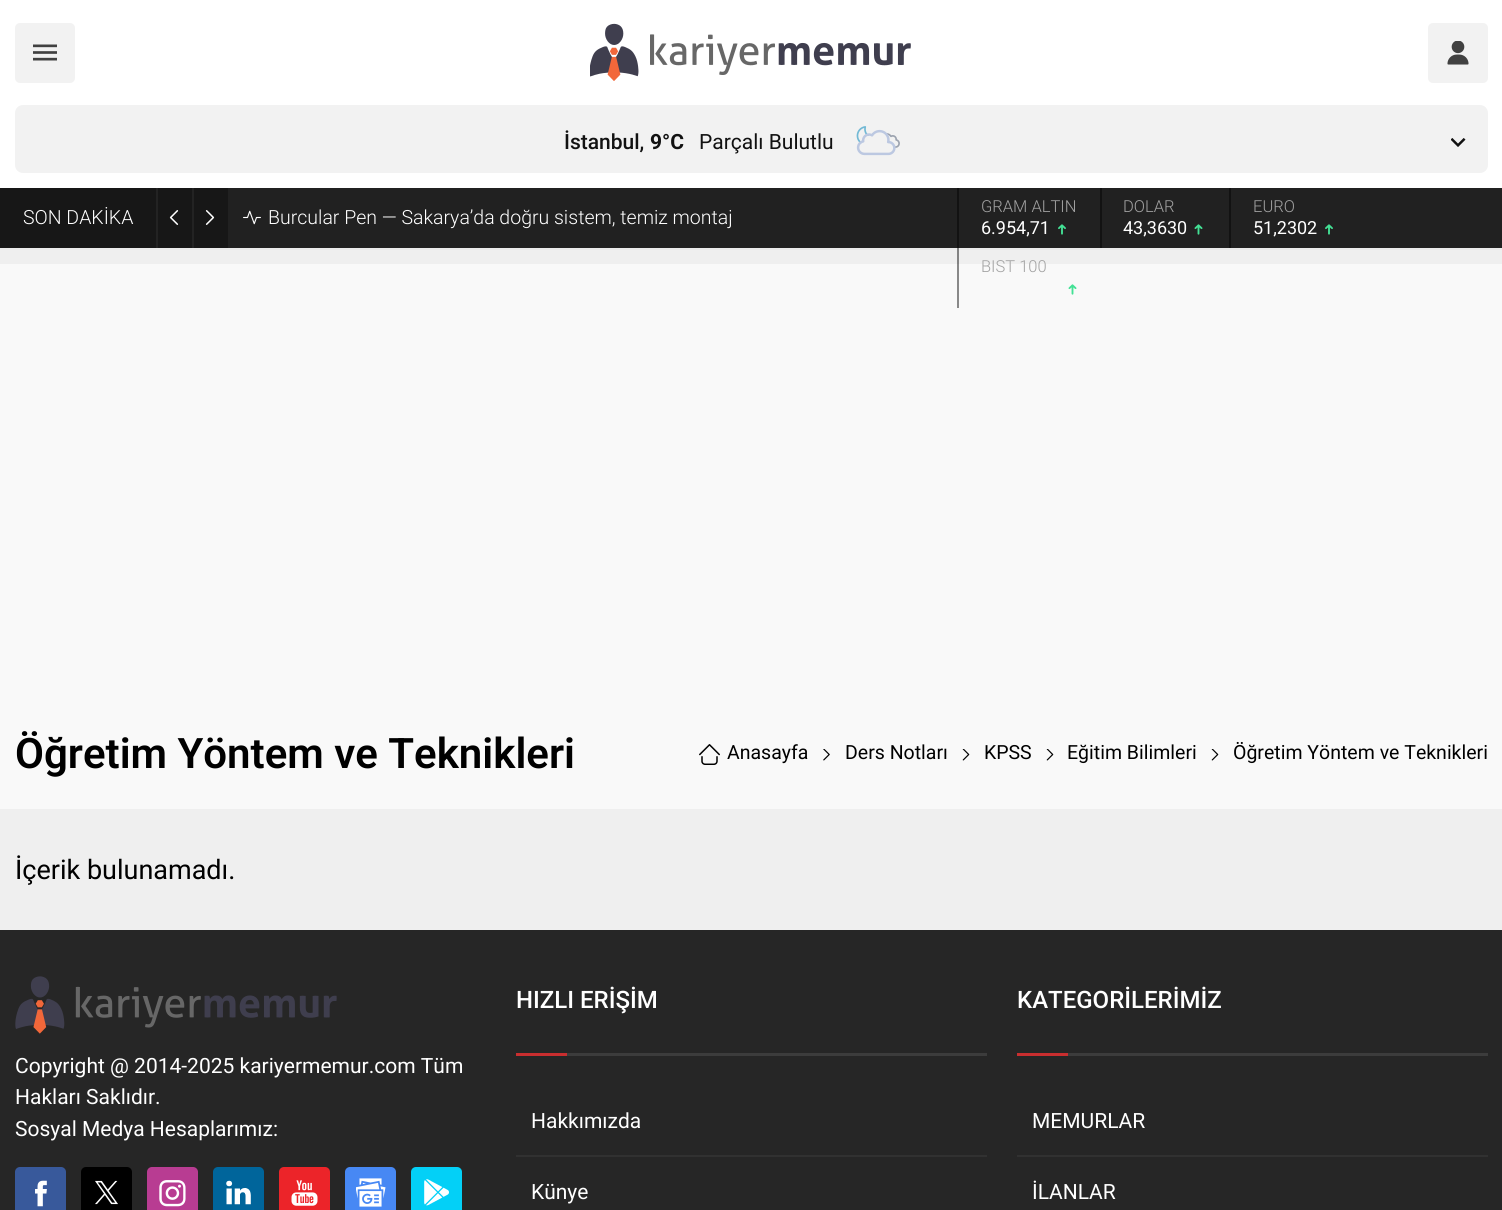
#include <cairo.h>
#include <math.h>
#include <stddef.h>


static void round_rect(cairo_t *cr, double x, double y, double w, double h, double r) {
    cairo_new_sub_path(cr);
    cairo_arc(cr, x + w - r, y + h - r, r, 0, M_PI / 2);
    cairo_arc(cr, x + r, y + h - r, r, M_PI / 2, M_PI);
    cairo_arc(cr, x + r, y + r, r, M_PI, 1.5 * M_PI);
    cairo_arc(cr, x + w - r, y + r, r, 1.5 * M_PI, 2 * M_PI);
    cairo_close_path(cr);
}

static void picture(cairo_t *cr, const char *path, double x, double y, double w, double h) {
    cairo_surface_t *image = cairo_image_surface_create_from_png(path);
    cairo_save(cr);
    cairo_set_source_surface(cr, image, x, y);
    cairo_rectangle(cr, x, y, w, h);
    cairo_fill(cr);
    cairo_restore(cr);
    cairo_surface_destroy(image);
}

int main(void) {
    cairo_surface_t *surface = cairo_image_surface_create(CAIRO_FORMAT_RGB24, 1502, 1210);
    cairo_t *cr = cairo_create(surface);
    cairo_font_options_t *options = cairo_font_options_create();
    cairo_font_options_set_hint_metrics(options, CAIRO_HINT_METRICS_OFF);
    cairo_font_options_set_hint_style(options, CAIRO_HINT_STYLE_NONE);
    cairo_set_font_options(cr, options);
    cairo_set_miter_limit(cr, 4);
    cairo_set_source_rgb(cr, 0.937, 0.937, 0.937);
    cairo_paint(cr);
    cairo_set_source_rgb(cr, 0.514, 0.514, 0.514);
    cairo_rectangle(cr, 957, 248, 2, 16);
    cairo_fill(cr);
    cairo_set_source_rgb(cr, 0.918, 0.918, 0.918);
    cairo_rectangle(cr, 0, 248, 1502, 2);
    cairo_fill(cr);
    cairo_set_source_rgb(cr, 0.506, 0.506, 0.506);
    cairo_rectangle(cr, 957, 248, 2, 2);
    cairo_fill(cr);
    cairo_set_source_rgb(cr, 1, 1, 1);
    cairo_rectangle(cr, 0, 0, 1502, 188);
    cairo_fill(cr);
    cairo_set_source_rgb(cr, 0.949, 0.949, 0.949);
    round_rect(cr, 15, 23, 60, 60, 5);
    cairo_fill(cr);
    picture(cr, "img1.png", 33, 44, 24, 17);
    picture(cr, "img2.png", 590, 23, 321, 58);
    round_rect(cr, 1428, 23, 60, 60, 5);
    cairo_fill(cr);
    picture(cr, "img3.png", 1447, 41, 22, 24);
    round_rect(cr, 15, 105, 1473, 68, 8);
    cairo_fill(cr);
    cairo_select_font_face(cr, "Roboto Medium", CAIRO_FONT_SLANT_NORMAL, CAIRO_FONT_WEIGHT_NORMAL);
    cairo_set_font_size(cr, 21);
    cairo_set_source_rgb(cr, 0.071, 0.071, 0.071);
    cairo_move_to(cr, 564, 149);
    cairo_show_text(cr, "İstanbul,");
    cairo_select_font_face(cr, "Roboto", CAIRO_FONT_SLANT_NORMAL, CAIRO_FONT_WEIGHT_BOLD);
    cairo_move_to(cr, 650, 149);
    cairo_show_text(cr, "9°C");
    cairo_select_font_face(cr, "Roboto", CAIRO_FONT_SLANT_NORMAL, CAIRO_FONT_WEIGHT_NORMAL);
    cairo_move_to(cr, 699, 149);
    cairo_show_text(cr, "Parçalı Bulutlu");
    picture(cr, "img4.png", 856, 126, 44, 30);
    picture(cr, "img5.png", 1451, 138, 15, 9);
    cairo_set_source_rgb(cr, 0.129, 0.129, 0.129);
    cairo_rectangle(cr, 228, 188, 1274, 60);
    cairo_fill(cr);
    cairo_set_source_rgb(cr, 0.09, 0.09, 0.09);
    cairo_rectangle(cr, 0, 188, 228, 60);
    cairo_fill(cr);
    cairo_select_font_face(cr, "Roboto Light", CAIRO_FONT_SLANT_NORMAL, CAIRO_FONT_WEIGHT_NORMAL);
    cairo_set_font_size(cr, 19.5);
    cairo_set_source_rgb(cr, 1, 1, 1);
    cairo_move_to(cr, 23, 224);
    cairo_show_text(cr, "SON DAKİKA");
    cairo_set_source_rgb(cr, 0.137, 0.137, 0.137);
    cairo_rectangle(cr, 156, 188, 2, 60);
    cairo_fill(cr);
    picture(cr, "img6.png", 169, 210, 10, 15);
    cairo_rectangle(cr, 192, 188, 2, 60);
    cairo_fill(cr);
    picture(cr, "img7.png", 205, 210, 10, 15);
    picture(cr, "img8.png", 243, 210, 18, 15);
    cairo_set_source_rgb(cr, 1, 1, 1);
    cairo_move_to(cr, 268, 224);
    cairo_show_text(cr, "Burcular Pen — Sakarya’da doğru sistem, temiz montaj");
    cairo_set_source_rgb(cr, 0.071, 0.071, 0.071);
    cairo_rectangle(cr, 957, 188, 2, 60);
    cairo_fill(cr);
    cairo_set_font_size(cr, 16.5);
    cairo_set_source_rgb(cr, 0.635, 0.635, 0.635);
    cairo_move_to(cr, 981, 212);
    cairo_show_text(cr, "GRAM ALTIN");
    cairo_select_font_face(cr, "Roboto", CAIRO_FONT_SLANT_NORMAL, CAIRO_FONT_WEIGHT_NORMAL);
    cairo_set_font_size(cr, 18);
    cairo_set_source_rgb(cr, 1, 1, 1);
    cairo_move_to(cr, 981, 234);
    cairo_show_text(cr, "6.954,71");
    picture(cr, "img9.png", 1058, 224, 8, 11);
    cairo_set_source_rgb(cr, 0.071, 0.071, 0.071);
    cairo_rectangle(cr, 1100, 188, 2, 60);
    cairo_fill(cr);
    cairo_select_font_face(cr, "Roboto Light", CAIRO_FONT_SLANT_NORMAL, CAIRO_FONT_WEIGHT_NORMAL);
    cairo_set_font_size(cr, 16.5);
    cairo_set_source_rgb(cr, 0.635, 0.635, 0.635);
    cairo_move_to(cr, 1123, 212);
    cairo_show_text(cr, "DOLAR");
    cairo_select_font_face(cr, "Roboto", CAIRO_FONT_SLANT_NORMAL, CAIRO_FONT_WEIGHT_NORMAL);
    cairo_set_font_size(cr, 18);
    cairo_set_source_rgb(cr, 1, 1, 1);
    cairo_move_to(cr, 1123, 234);
    cairo_show_text(cr, "43,3630");
    picture(cr, "img10.png", 1194, 224, 9, 11);
    cairo_set_source_rgb(cr, 0.071, 0.071, 0.071);
    cairo_rectangle(cr, 1229, 188, 2, 60);
    cairo_fill(cr);
    cairo_select_font_face(cr, "Roboto Light", CAIRO_FONT_SLANT_NORMAL, CAIRO_FONT_WEIGHT_NORMAL);
    cairo_set_font_size(cr, 16.5);
    cairo_set_source_rgb(cr, 0.635, 0.635, 0.635);
    cairo_move_to(cr, 1253, 212);
    cairo_show_text(cr, "EURO");
    cairo_select_font_face(cr, "Roboto", CAIRO_FONT_SLANT_NORMAL, CAIRO_FONT_WEIGHT_NORMAL);
    cairo_set_font_size(cr, 18);
    cairo_set_source_rgb(cr, 1, 1, 1);
    cairo_move_to(cr, 1253, 234);
    cairo_show_text(cr, "51,2302");
    picture(cr, "img9.png", 1325, 224, 8, 11);
    cairo_set_source_rgb(cr, 0.976, 0.976, 0.976);
    cairo_rectangle(cr, 0, 264, 1502, 545);
    cairo_fill(cr);
    cairo_select_font_face(cr, "Roboto Light", CAIRO_FONT_SLANT_NORMAL, CAIRO_FONT_WEIGHT_NORMAL);
    cairo_set_font_size(cr, 16.5);
    cairo_set_source_rgb(cr, 0.635, 0.635, 0.635);
    cairo_move_to(cr, 981, 272);
    cairo_show_text(cr, "BIST 100");
    picture(cr, "img11.png", 1068, 284, 9, 11);
    cairo_set_source_rgb(cr, 0.537, 0.537, 0.537);
    cairo_rectangle(cr, 957, 264, 2, 44);
    cairo_fill(cr);
    cairo_select_font_face(cr, "Roboto SemiBold", CAIRO_FONT_SLANT_NORMAL, CAIRO_FONT_WEIGHT_NORMAL);
    cairo_set_font_size(cr, 42);
    cairo_set_source_rgb(cr, 0, 0, 0);
    cairo_move_to(cr, 15, 768);
    cairo_show_text(cr, "Öğretim Yöntem ve Teknikleri");
    picture(cr, "img12.png", 699, 744, 21, 21);
    cairo_select_font_face(cr, "Roboto", CAIRO_FONT_SLANT_NORMAL, CAIRO_FONT_WEIGHT_NORMAL);
    cairo_set_font_size(cr, 19.5);
    cairo_move_to(cr, 727, 759);
    cairo_show_text(cr, "Anasayfa");
    picture(cr, "img13.png", 823, 749, 7, 12);
    cairo_move_to(cr, 845, 759);
    cairo_show_text(cr, "Ders Notları");
    picture(cr, "img14.png", 962, 749, 8, 12);
    cairo_move_to(cr, 984, 759);
    cairo_show_text(cr, "KPSS");
    picture(cr, "img14.png", 1046, 749, 8, 12);
    cairo_move_to(cr, 1067, 759);
    cairo_show_text(cr, "Eğitim Bilimleri");
    picture(cr, "img14.png", 1211, 749, 8, 12);
    cairo_move_to(cr, 1233, 759);
    cairo_show_text(cr, "Öğretim Yöntem ve Teknikleri");
    cairo_set_font_size(cr, 27);
    cairo_move_to(cr, 15, 879);
    cairo_show_text(cr, "İçerik bulunamadı.");
    cairo_set_source_rgb(cr, 0.149, 0.149, 0.149);
    cairo_rectangle(cr, 0, 930, 1502, 280);
    cairo_fill(cr);
    picture(cr, "img15.png", 15, 976, 322, 58);
    cairo_set_font_size(cr, 21);
    cairo_set_source_rgb(cr, 1, 1, 1);
    cairo_move_to(cr, 15, 1073);
    cairo_show_text(cr, "Copyright @ 2014-2025 kariyermemur.com Tüm");
    cairo_move_to(cr, 15, 1104);
    cairo_show_text(cr, "Hakları Saklıdır.");
    cairo_move_to(cr, 15, 1136);
    cairo_show_text(cr, "Sosyal Medya Hesaplarımız:");
    cairo_set_source_rgb(cr, 0.22, 0.349, 0.608);
    round_rect(cr, 15, 1167, 51, 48, 5);
    cairo_fill(cr);
    picture(cr, "img16.png", 35, 1180, 12, 27);
    cairo_set_source_rgb(cr, 0, 0, 0);
    round_rect(cr, 81, 1167, 51, 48, 5);
    cairo_fill(cr);
    picture(cr, "img17.png", 95, 1180, 23, 25);
    cairo_set_source_rgb(cr, 0.722, 0.235, 0.573);
    round_rect(cr, 147, 1167, 51, 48, 5);
    cairo_fill(cr);
    picture(cr, "img18.png", 159, 1180, 27, 27);
    cairo_set_source_rgb(cr, 0, 0.396, 0.608);
    round_rect(cr, 213, 1167, 51, 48, 5);
    cairo_fill(cr);
    picture(cr, "img19.png", 226, 1180, 25, 25);
    cairo_set_source_rgb(cr, 0.922, 0.141, 0.161);
    round_rect(cr, 279, 1167, 51, 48, 5);
    cairo_fill(cr);
    picture(cr, "img20.png", 291, 1180, 27, 26);
    cairo_set_source_rgb(cr, 0.278, 0.533, 0.957);
    round_rect(cr, 345, 1167, 51, 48, 5);
    cairo_fill(cr);
    picture(cr, "img21.png", 356, 1178, 30, 29);
    cairo_set_source_rgb(cr, 0.012, 0.816, 0.965);
    round_rect(cr, 411, 1167, 51, 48, 5);
    cairo_fill(cr);
    picture(cr, "img22.png", 424, 1179, 25, 27);
    cairo_set_source_rgb(cr, 0.235, 0.235, 0.235);
    cairo_rectangle(cr, 567, 1053, 420, 3);
    cairo_fill(cr);
    cairo_select_font_face(cr, "Roboto Medium", CAIRO_FONT_SLANT_NORMAL, CAIRO_FONT_WEIGHT_NORMAL);
    cairo_set_font_size(cr, 24);
    cairo_set_source_rgb(cr, 1, 1, 1);
    cairo_move_to(cr, 516, 1008);
    cairo_show_text(cr, "HIZLI ERİŞİM");
    cairo_set_source_rgb(cr, 0.788, 0.18, 0.184);
    cairo_rectangle(cr, 516, 1053, 51, 3);
    cairo_fill(cr);
    cairo_select_font_face(cr, "Roboto", CAIRO_FONT_SLANT_NORMAL, CAIRO_FONT_WEIGHT_NORMAL);
    cairo_set_font_size(cr, 21);
    cairo_set_source_rgb(cr, 1, 1, 1);
    cairo_move_to(cr, 531, 1128);
    cairo_show_text(cr, "Hakkımızda");
    cairo_set_source_rgb(cr, 0.192, 0.192, 0.192);
    cairo_rectangle(cr, 516, 1155, 471, 2);
    cairo_fill(cr);
    cairo_set_source_rgb(cr, 1, 1, 1);
    cairo_move_to(cr, 531, 1199);
    cairo_show_text(cr, "Künye");
    cairo_set_source_rgb(cr, 0.235, 0.235, 0.235);
    cairo_rectangle(cr, 1068, 1053, 420, 3);
    cairo_fill(cr);
    cairo_select_font_face(cr, "Roboto Medium", CAIRO_FONT_SLANT_NORMAL, CAIRO_FONT_WEIGHT_NORMAL);
    cairo_set_font_size(cr, 24);
    cairo_set_source_rgb(cr, 1, 1, 1);
    cairo_move_to(cr, 1017, 1008);
    cairo_show_text(cr, "KATEGORİLERİMİZ");
    cairo_set_source_rgb(cr, 0.788, 0.18, 0.184);
    cairo_rectangle(cr, 1017, 1053, 51, 3);
    cairo_fill(cr);
    cairo_select_font_face(cr, "Roboto", CAIRO_FONT_SLANT_NORMAL, CAIRO_FONT_WEIGHT_NORMAL);
    cairo_set_font_size(cr, 21);
    cairo_set_source_rgb(cr, 1, 1, 1);
    cairo_move_to(cr, 1032, 1128);
    cairo_show_text(cr, "MEMURLAR");
    cairo_set_source_rgb(cr, 0.192, 0.192, 0.192);
    cairo_rectangle(cr, 1017, 1155, 471, 2);
    cairo_fill(cr);
    cairo_set_source_rgb(cr, 1, 1, 1);
    cairo_move_to(cr, 1032, 1199);
    cairo_show_text(cr, "İLANLAR");
    cairo_surface_write_to_png(surface, "page.png");
    cairo_font_options_destroy(options);
    cairo_destroy(cr);
    cairo_surface_destroy(surface);
    return 0;
}
